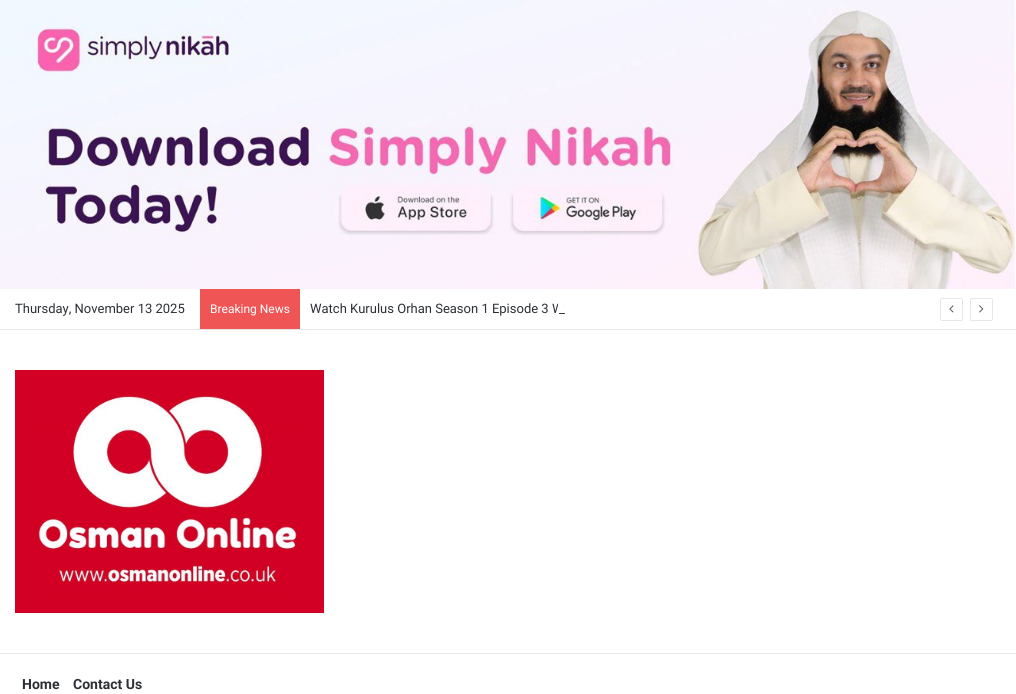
#include <cairo.h>
#include <math.h>
#include <stddef.h>


static void round_rect(cairo_t *cr, double x, double y, double w, double h, double r) {
    cairo_new_sub_path(cr);
    cairo_arc(cr, x + w - r, y + h - r, r, 0, M_PI / 2);
    cairo_arc(cr, x + r, y + h - r, r, M_PI / 2, M_PI);
    cairo_arc(cr, x + r, y + r, r, M_PI, 1.5 * M_PI);
    cairo_arc(cr, x + w - r, y + r, r, 1.5 * M_PI, 2 * M_PI);
    cairo_close_path(cr);
}

static void picture(cairo_t *cr, const char *path, double x, double y, double w, double h) {
    cairo_surface_t *image = cairo_image_surface_create_from_png(path);
    cairo_save(cr);
    cairo_set_source_surface(cr, image, x, y);
    cairo_rectangle(cr, x, y, w, h);
    cairo_fill(cr);
    cairo_restore(cr);
    cairo_surface_destroy(image);
}

int main(void) {
    cairo_surface_t *surface = cairo_image_surface_create(CAIRO_FORMAT_RGB24, 1016, 694);
    cairo_t *cr = cairo_create(surface);
    cairo_font_options_t *options = cairo_font_options_create();
    cairo_font_options_set_hint_metrics(options, CAIRO_HINT_METRICS_OFF);
    cairo_font_options_set_hint_style(options, CAIRO_HINT_STYLE_NONE);
    cairo_set_font_options(cr, options);
    cairo_set_miter_limit(cr, 4);
    cairo_set_source_rgb(cr, 1, 1, 1);
    cairo_paint(cr);
    picture(cr, "img1.png", 0, 0, 1016, 289);
    cairo_set_source_rgb(cr, 0.902, 0.902, 0.902);
    cairo_rectangle(cr, 0, 329, 1016, 1);
    cairo_fill(cr);
    cairo_select_font_face(cr, "Roboto", CAIRO_FONT_SLANT_NORMAL, CAIRO_FONT_WEIGHT_NORMAL);
    cairo_set_font_size(cr, 13);
    cairo_set_source_rgb(cr, 0.173, 0.184, 0.204);
    cairo_move_to(cr, 15, 313);
    cairo_show_text(cr, "Thursday, November 13 2025");
    cairo_set_source_rgb(cr, 0.941, 0.333, 0.333);
    cairo_rectangle(cr, 200, 289, 100, 40);
    cairo_fill(cr);
    cairo_set_font_size(cr, 12);
    cairo_set_source_rgb(cr, 1, 1, 1);
    cairo_move_to(cr, 210, 313);
    cairo_show_text(cr, "Breaking News");
    cairo_set_font_size(cr, 13);
    cairo_set_source_rgb(cr, 0.173, 0.184, 0.204);
    cairo_move_to(cr, 310, 313);
    cairo_show_text(cr, "Watch Kurulus Orhan Season 1 Episode 3 W");
    cairo_set_source_rgb(cr, 1, 1, 1);
    cairo_rectangle(cr, 558, 303, 5, 10);
    cairo_fill(cr);
    cairo_set_source_rgb(cr, 0.173, 0.184, 0.204);
    cairo_move_to(cr, 559, 313);
    cairo_show_text(cr, "_");
    round_rect(cr, 940.5, 298.5, 22, 22, 1.5);
    cairo_set_source_rgb(cr, 0.902, 0.902, 0.902);
    cairo_set_line_width(cr, 1);
    cairo_stroke(cr);
    picture(cr, "img2.png", 949, 305, 5, 8);
    round_rect(cr, 970.5, 298.5, 22, 22, 1.5);
    cairo_stroke(cr);
    picture(cr, "img3.png", 979, 305, 5, 8);
    picture(cr, "img4.png", 15, 370, 309, 243);
    cairo_rectangle(cr, 0, 653, 1016, 1);
    cairo_fill(cr);
    cairo_select_font_face(cr, "Roboto", CAIRO_FONT_SLANT_NORMAL, CAIRO_FONT_WEIGHT_BOLD);
    cairo_set_font_size(cr, 14);
    cairo_set_source_rgb(cr, 0.173, 0.184, 0.204);
    cairo_move_to(cr, 22, 689);
    cairo_show_text(cr, "Home");
    cairo_move_to(cr, 73, 689);
    cairo_show_text(cr, "Contact Us");
    cairo_surface_write_to_png(surface, "page.png");
    cairo_font_options_destroy(options);
    cairo_destroy(cr);
    cairo_surface_destroy(surface);
    return 0;
}
